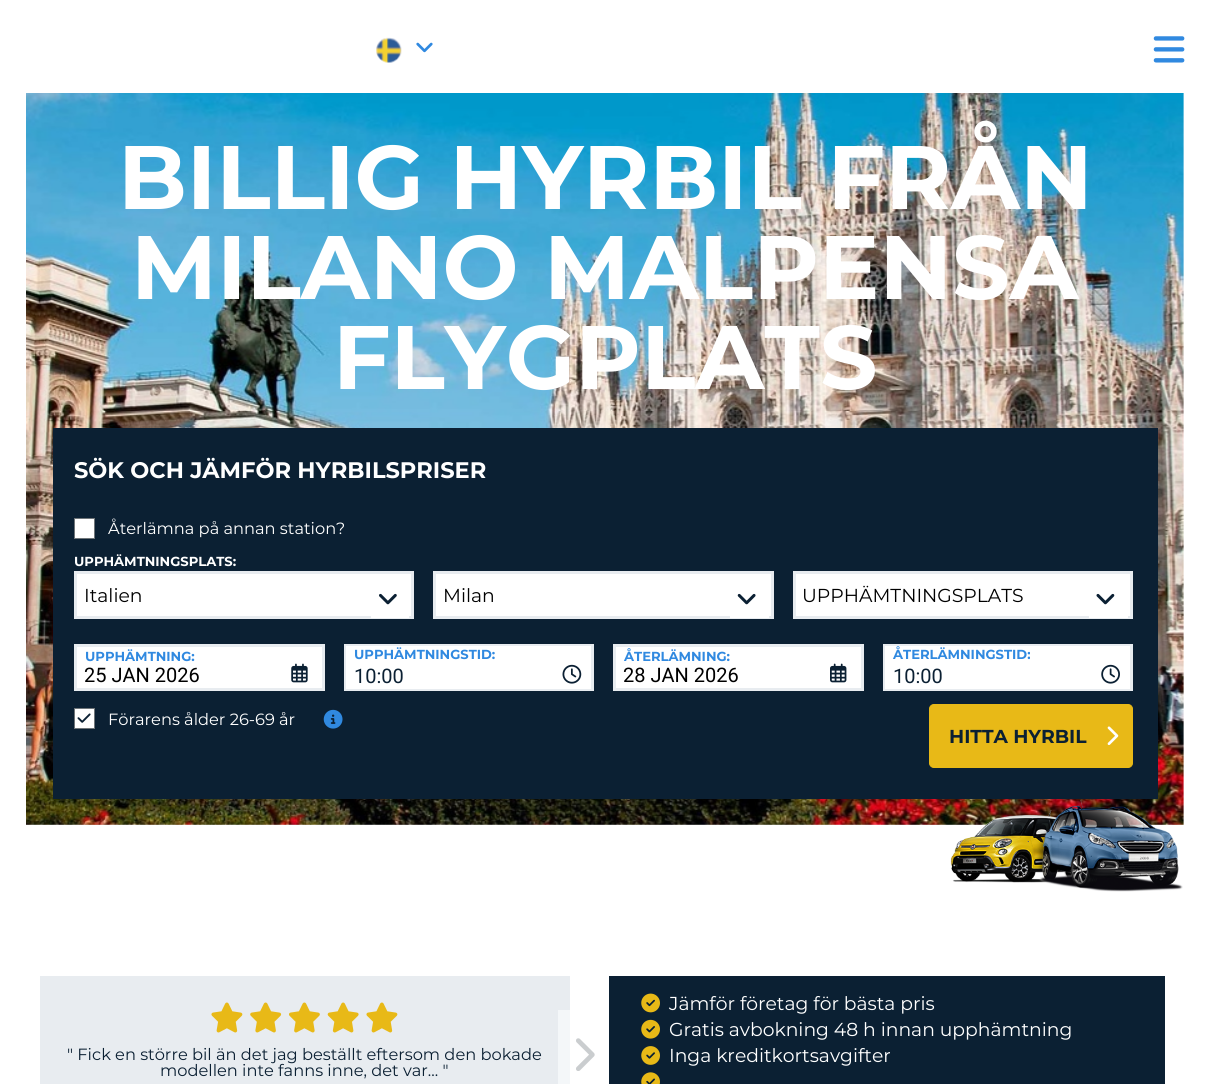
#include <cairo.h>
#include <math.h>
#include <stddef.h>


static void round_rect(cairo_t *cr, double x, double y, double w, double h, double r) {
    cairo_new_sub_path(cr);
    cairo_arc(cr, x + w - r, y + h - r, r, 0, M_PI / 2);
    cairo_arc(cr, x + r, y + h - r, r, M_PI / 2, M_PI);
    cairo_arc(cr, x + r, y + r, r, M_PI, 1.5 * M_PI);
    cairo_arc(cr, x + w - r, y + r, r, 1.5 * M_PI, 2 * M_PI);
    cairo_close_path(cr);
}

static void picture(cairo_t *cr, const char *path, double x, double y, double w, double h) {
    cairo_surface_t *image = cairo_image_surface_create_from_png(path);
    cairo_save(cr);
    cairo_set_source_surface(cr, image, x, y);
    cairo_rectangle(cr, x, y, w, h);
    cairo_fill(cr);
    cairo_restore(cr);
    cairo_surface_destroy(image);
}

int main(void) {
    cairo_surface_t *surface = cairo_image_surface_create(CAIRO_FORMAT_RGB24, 1210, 1084);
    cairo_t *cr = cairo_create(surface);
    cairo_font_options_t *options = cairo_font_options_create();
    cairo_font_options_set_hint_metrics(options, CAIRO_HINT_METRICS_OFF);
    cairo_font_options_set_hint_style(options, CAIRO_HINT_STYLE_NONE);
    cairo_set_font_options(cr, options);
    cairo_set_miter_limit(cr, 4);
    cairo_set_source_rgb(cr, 1, 1, 1);
    cairo_paint(cr);
    picture(cr, "img1.png", 376, 37, 26, 26);
    picture(cr, "img2.png", 416, 42, 17, 11);
    picture(cr, "img3.png", 1153, 36, 32, 27);
    picture(cr, "img4.png", 26, 93, 1158, 732);
    cairo_select_font_face(cr, "Montserrat", CAIRO_FONT_SLANT_NORMAL, CAIRO_FONT_WEIGHT_BOLD);
    cairo_set_font_size(cr, 90);
    cairo_set_source_rgb(cr, 1, 1, 1);
    cairo_move_to(cr, 118, 209);
    cairo_show_text(cr, "BILLIG HYRBIL FRÅN");
    cairo_move_to(cr, 131, 299);
    cairo_show_text(cr, "MILANO MALPENSA");
    cairo_move_to(cr, 333, 389);
    cairo_show_text(cr, "FLYGPLATS");
    cairo_set_source_rgb(cr, 0.043, 0.125, 0.2);
    cairo_rectangle(cr, 53, 428, 1105, 371);
    cairo_fill(cr);
    cairo_set_font_size(cr, 22.5);
    cairo_set_source_rgb(cr, 1, 1, 1);
    cairo_move_to(cr, 74, 478);
    cairo_show_text(cr, "SÖK OCH JÄMFÖR HYRBILSPRISER");
    cairo_rectangle(cr, 74.5, 518.5, 20, 20);
    cairo_fill_preserve(cr);
    cairo_set_source_rgb(cr, 0.435, 0.459, 0.475);
    cairo_set_line_width(cr, 1);
    cairo_stroke(cr);
    cairo_select_font_face(cr, "Montserrat", CAIRO_FONT_SLANT_NORMAL, CAIRO_FONT_WEIGHT_NORMAL);
    cairo_set_font_size(cr, 16.25);
    cairo_set_source_rgb(cr, 1, 1, 1);
    cairo_move_to(cr, 108, 534);
    cairo_show_text(cr, "Återlämna på annan station?");
    cairo_select_font_face(cr, "Montserrat", CAIRO_FONT_SLANT_NORMAL, CAIRO_FONT_WEIGHT_BOLD);
    cairo_set_font_size(cr, 13.1);
    cairo_move_to(cr, 74, 566);
    cairo_show_text(cr, "UPPHÄMTNINGSPLATS:");
    cairo_rectangle(cr, 75.5, 572.5, 337, 45);
    cairo_fill_preserve(cr);
    cairo_set_source_rgb(cr, 0.91, 0.925, 0.941);
    cairo_set_line_width(cr, 3);
    cairo_stroke(cr);
    cairo_select_font_face(cr, "Montserrat", CAIRO_FONT_SLANT_NORMAL, CAIRO_FONT_WEIGHT_NORMAL);
    cairo_set_font_size(cr, 18.75);
    cairo_set_source_rgb(cr, 0, 0, 0);
    cairo_move_to(cr, 84, 602);
    cairo_show_text(cr, "Italien");
    cairo_set_source_rgb(cr, 1, 1, 1);
    cairo_rectangle(cr, 371, 616, 38, 2);
    cairo_fill(cr);
    picture(cr, "img5.png", 379, 593, 18, 12);
    cairo_rectangle(cr, 434.5, 572.5, 338, 45);
    cairo_fill_preserve(cr);
    cairo_set_source_rgb(cr, 0.91, 0.925, 0.941);
    cairo_stroke(cr);
    cairo_set_source_rgb(cr, 0, 0, 0);
    cairo_move_to(cr, 443, 602);
    cairo_show_text(cr, "Milan");
    cairo_set_source_rgb(cr, 1, 1, 1);
    cairo_rectangle(cr, 730, 616, 39, 2);
    cairo_fill(cr);
    picture(cr, "img6.png", 737, 593, 19, 12);
    cairo_rectangle(cr, 794.5, 572.5, 337, 45);
    cairo_fill_preserve(cr);
    cairo_set_source_rgb(cr, 0.91, 0.925, 0.941);
    cairo_stroke(cr);
    cairo_set_source_rgb(cr, 0, 0, 0);
    cairo_move_to(cr, 802, 602);
    cairo_show_text(cr, "UPPHÄMTNINGSPLATS");
    cairo_set_source_rgb(cr, 1, 1, 1);
    cairo_rectangle(cr, 1089, 616, 39, 2);
    cairo_fill(cr);
    picture(cr, "img7.png", 1096, 593, 19, 12);
    cairo_rectangle(cr, 75.5, 645.5, 248, 44);
    cairo_fill_preserve(cr);
    cairo_set_source_rgb(cr, 0.91, 0.925, 0.941);
    cairo_stroke(cr);
    cairo_select_font_face(cr, "Montserrat", CAIRO_FONT_SLANT_NORMAL, CAIRO_FONT_WEIGHT_BOLD);
    cairo_set_font_size(cr, 13.1);
    cairo_set_source_rgb(cr, 0.188, 0.537, 0.878);
    cairo_move_to(cr, 85, 661);
    cairo_show_text(cr, "UPPHÄMTNING:");
    cairo_select_font_face(cr, "Roboto", CAIRO_FONT_SLANT_NORMAL, CAIRO_FONT_WEIGHT_NORMAL);
    cairo_set_font_size(cr, 20);
    cairo_set_source_rgb(cr, 0, 0, 0);
    cairo_move_to(cr, 84, 682);
    cairo_show_text(cr, "25 JAN 2026");
    picture(cr, "img8.png", 291, 663, 17, 20);
    cairo_rectangle(cr, 345.5, 645.5, 247, 44);
    cairo_set_source_rgb(cr, 0.91, 0.925, 0.941);
    cairo_stroke(cr);
    cairo_set_source_rgb(cr, 1, 1, 1);
    cairo_rectangle(cr, 346, 646, 245, 43);
    cairo_fill(cr);
    cairo_select_font_face(cr, "Montserrat", CAIRO_FONT_SLANT_NORMAL, CAIRO_FONT_WEIGHT_BOLD);
    cairo_set_font_size(cr, 13.1);
    cairo_set_source_rgb(cr, 0.188, 0.537, 0.878);
    cairo_move_to(cr, 354, 659);
    cairo_show_text(cr, "UPPHÄMTNINGSTID:");
    cairo_select_font_face(cr, "Roboto", CAIRO_FONT_SLANT_NORMAL, CAIRO_FONT_WEIGHT_NORMAL);
    cairo_set_font_size(cr, 20);
    cairo_set_source_rgb(cr, 0.043, 0.125, 0.2);
    cairo_move_to(cr, 354, 683);
    cairo_show_text(cr, "10:00");
    picture(cr, "img9.png", 562, 664, 20, 20);
    cairo_set_source_rgb(cr, 1, 1, 1);
    cairo_rectangle(cr, 614.5, 645.5, 248, 44);
    cairo_fill_preserve(cr);
    cairo_set_source_rgb(cr, 0.91, 0.925, 0.941);
    cairo_stroke(cr);
    cairo_select_font_face(cr, "Montserrat", CAIRO_FONT_SLANT_NORMAL, CAIRO_FONT_WEIGHT_BOLD);
    cairo_set_font_size(cr, 13.1);
    cairo_set_source_rgb(cr, 0.188, 0.537, 0.878);
    cairo_move_to(cr, 624, 661);
    cairo_show_text(cr, "ÅTERLÄMNING:");
    cairo_select_font_face(cr, "Roboto", CAIRO_FONT_SLANT_NORMAL, CAIRO_FONT_WEIGHT_NORMAL);
    cairo_set_font_size(cr, 20);
    cairo_set_source_rgb(cr, 0, 0, 0);
    cairo_move_to(cr, 623, 682);
    cairo_show_text(cr, "28 JAN 2026");
    picture(cr, "img10.png", 830, 663, 17, 20);
    cairo_rectangle(cr, 884.5, 645.5, 247, 44);
    cairo_set_source_rgb(cr, 0.91, 0.925, 0.941);
    cairo_stroke(cr);
    cairo_set_source_rgb(cr, 1, 1, 1);
    cairo_rectangle(cr, 885, 646, 245, 43);
    cairo_fill(cr);
    cairo_select_font_face(cr, "Montserrat", CAIRO_FONT_SLANT_NORMAL, CAIRO_FONT_WEIGHT_BOLD);
    cairo_set_font_size(cr, 13.1);
    cairo_set_source_rgb(cr, 0.188, 0.537, 0.878);
    cairo_move_to(cr, 893, 659);
    cairo_show_text(cr, "ÅTERLÄMNINGSTID:");
    cairo_select_font_face(cr, "Roboto", CAIRO_FONT_SLANT_NORMAL, CAIRO_FONT_WEIGHT_NORMAL);
    cairo_set_font_size(cr, 20);
    cairo_set_source_rgb(cr, 0.043, 0.125, 0.2);
    cairo_move_to(cr, 893, 683);
    cairo_show_text(cr, "10:00");
    picture(cr, "img11.png", 1101, 664, 19, 20);
    cairo_set_source_rgb(cr, 1, 1, 1);
    cairo_rectangle(cr, 74.5, 708.5, 20, 20);
    cairo_fill_preserve(cr);
    cairo_set_source_rgb(cr, 0.435, 0.459, 0.475);
    cairo_set_line_width(cr, 1);
    cairo_stroke(cr);
    cairo_select_font_face(cr, "Montserrat", CAIRO_FONT_SLANT_NORMAL, CAIRO_FONT_WEIGHT_NORMAL);
    cairo_set_font_size(cr, 16.25);
    cairo_set_source_rgb(cr, 1, 1, 1);
    cairo_move_to(cr, 108, 725);
    cairo_show_text(cr, "Förarens ålder 26-69 år");
    picture(cr, "img12.png", 77, 713, 14, 10);
    picture(cr, "img13.png", 323, 709, 20, 20);
    cairo_set_source_rgb(cr, 0.91, 0.725, 0.09);
    round_rect(cr, 929.5, 704.5, 203, 63, 4.5);
    cairo_fill_preserve(cr);
    cairo_stroke(cr);
    cairo_select_font_face(cr, "Montserrat", CAIRO_FONT_SLANT_NORMAL, CAIRO_FONT_WEIGHT_BOLD);
    cairo_set_font_size(cr, 18.75);
    cairo_set_source_rgb(cr, 0.043, 0.125, 0.2);
    cairo_move_to(cr, 949, 743);
    cairo_show_text(cr, "HITTA HYRBIL");
    picture(cr, "img14.png", 1107, 726, 12, 19);
    picture(cr, "img15.png", 950, 800, 233, 92);
    cairo_set_source_rgb(cr, 0.91, 0.925, 0.941);
    cairo_rectangle(cr, 40, 976, 530, 108);
    cairo_fill(cr);
    cairo_set_source_rgb(cr, 0.957, 0.965, 0.973);
    cairo_rectangle(cr, 558, 1010, 12, 74);
    cairo_fill(cr);
    picture(cr, "img16.png", 211, 1002, 32, 31);
    picture(cr, "img17.png", 250, 1002, 32, 31);
    picture(cr, "img18.png", 289, 1002, 31, 31);
    picture(cr, "img19.png", 327, 1002, 32, 31);
    picture(cr, "img16.png", 366, 1002, 32, 31);
    cairo_select_font_face(cr, "Montserrat", CAIRO_FONT_SLANT_NORMAL, CAIRO_FONT_WEIGHT_NORMAL);
    cairo_set_font_size(cr, 16.25);
    cairo_set_source_rgb(cr, 0.043, 0.125, 0.2);
    cairo_move_to(cr, 67, 1060);
    cairo_show_text(cr, "\" Fick en större bil än det jag beställt eftersom den bokade");
    cairo_move_to(cr, 160, 1076);
    cairo_show_text(cr, "modellen inte fanns inne, det var... \"");
    picture(cr, "img20.png", 576, 1038, 19, 33);
    cairo_rectangle(cr, 609, 976, 556, 108);
    cairo_fill(cr);
    picture(cr, "img21.png", 641, 993, 19, 20);
    cairo_set_font_size(cr, 18.75);
    cairo_set_source_rgb(cr, 1, 1, 1);
    cairo_move_to(cr, 669, 1010);
    cairo_show_text(cr, "Jämför företag för bästa pris");
    picture(cr, "img22.png", 641, 1019, 19, 20);
    cairo_move_to(cr, 669, 1036);
    cairo_show_text(cr, "Gratis avbokning 48 h innan upphämtning");
    picture(cr, "img23.png", 641, 1046, 19, 19);
    cairo_move_to(cr, 669, 1062);
    cairo_show_text(cr, "Inga kreditkortsavgifter");
    picture(cr, "img24.png", 641, 1072, 19, 12);
    cairo_surface_write_to_png(surface, "page.png");
    cairo_font_options_destroy(options);
    cairo_destroy(cr);
    cairo_surface_destroy(surface);
    return 0;
}
